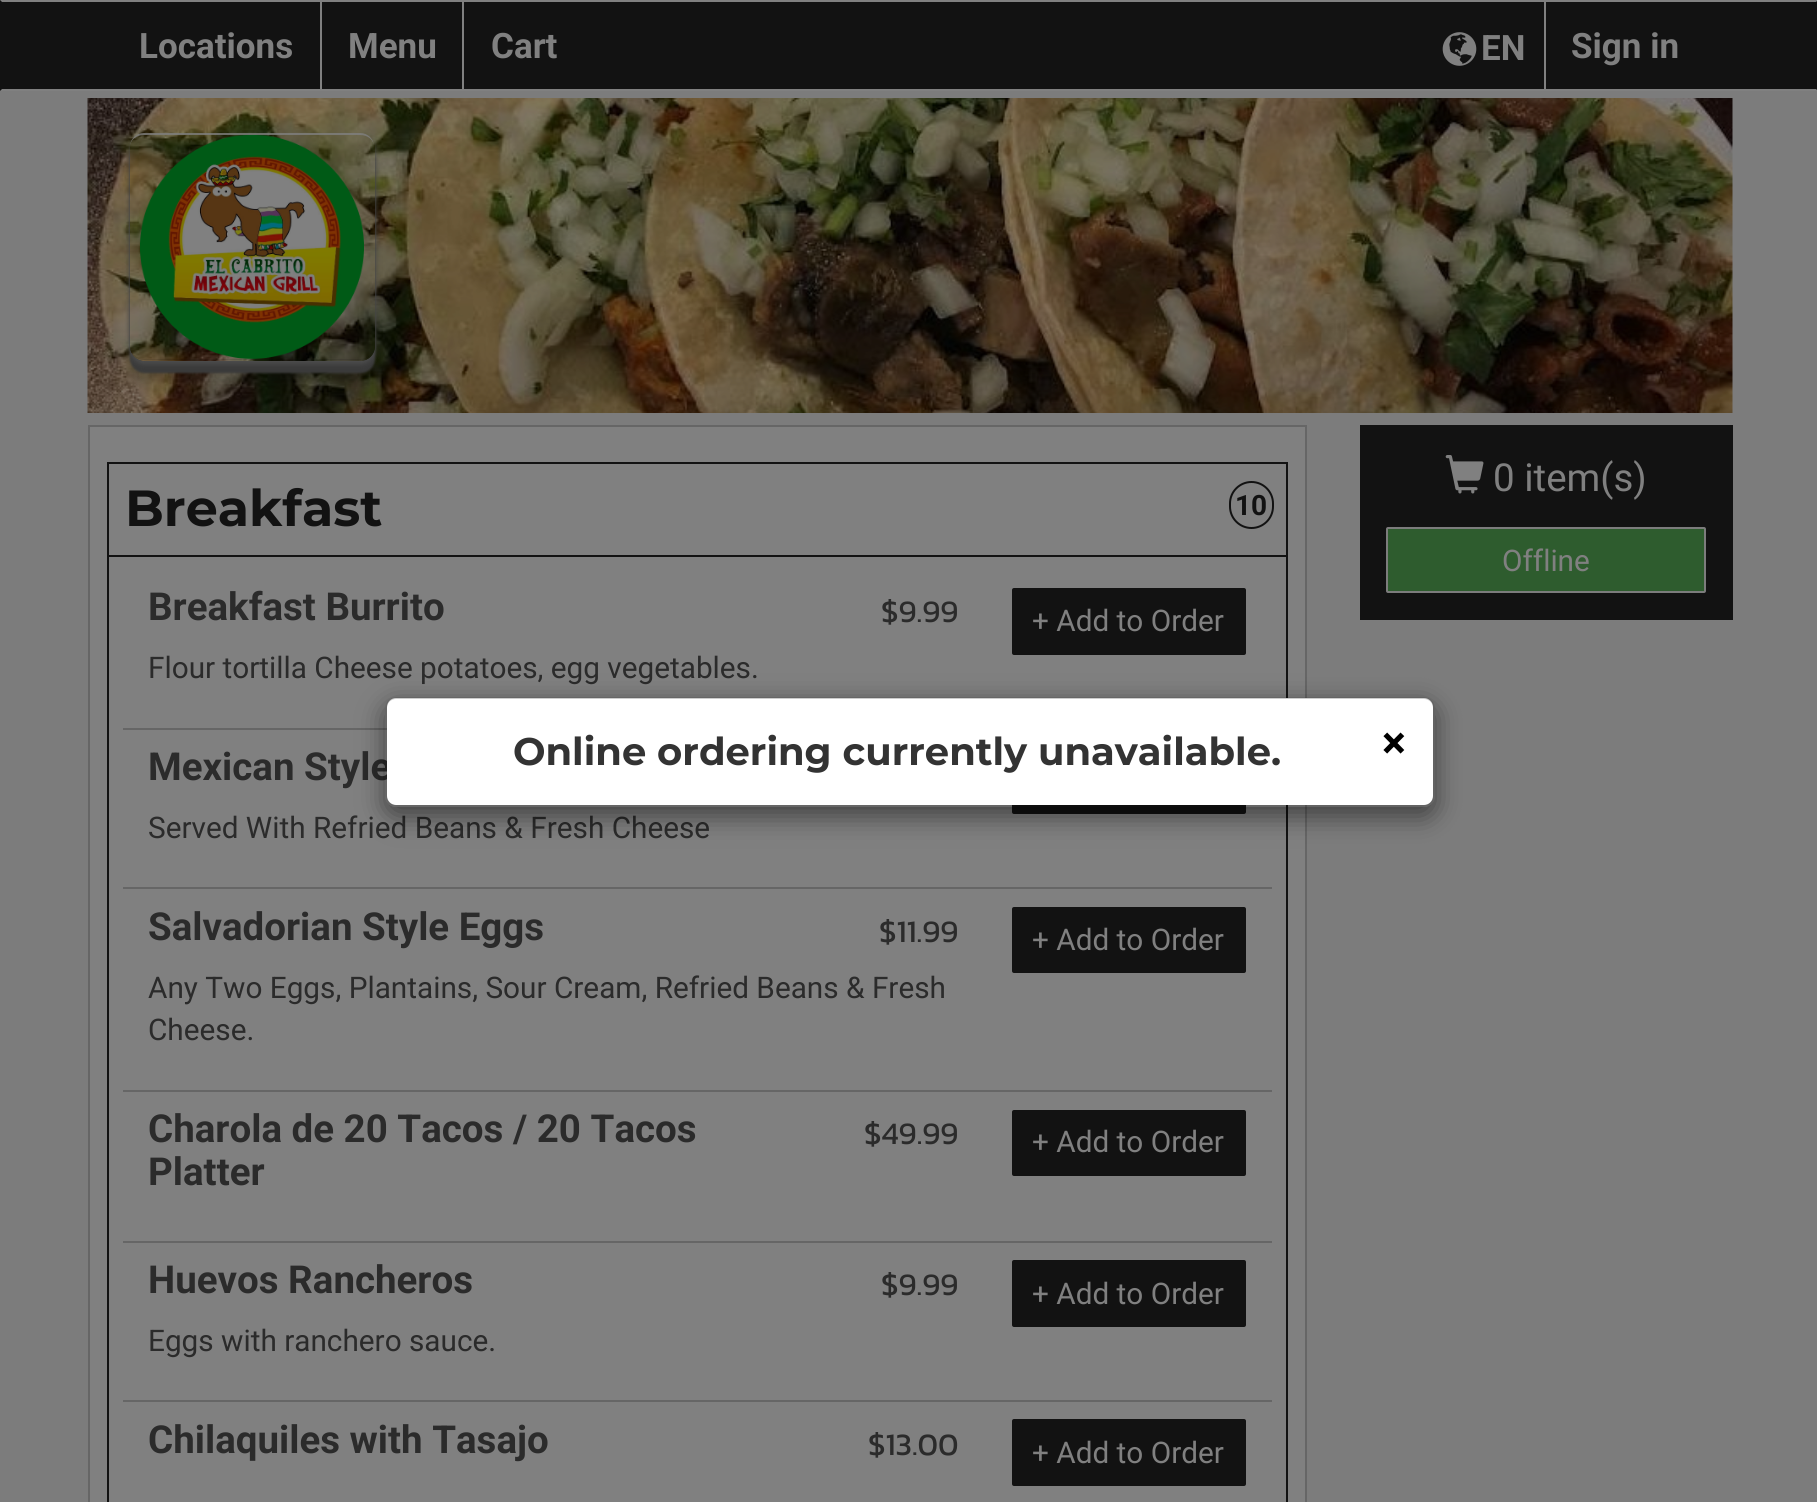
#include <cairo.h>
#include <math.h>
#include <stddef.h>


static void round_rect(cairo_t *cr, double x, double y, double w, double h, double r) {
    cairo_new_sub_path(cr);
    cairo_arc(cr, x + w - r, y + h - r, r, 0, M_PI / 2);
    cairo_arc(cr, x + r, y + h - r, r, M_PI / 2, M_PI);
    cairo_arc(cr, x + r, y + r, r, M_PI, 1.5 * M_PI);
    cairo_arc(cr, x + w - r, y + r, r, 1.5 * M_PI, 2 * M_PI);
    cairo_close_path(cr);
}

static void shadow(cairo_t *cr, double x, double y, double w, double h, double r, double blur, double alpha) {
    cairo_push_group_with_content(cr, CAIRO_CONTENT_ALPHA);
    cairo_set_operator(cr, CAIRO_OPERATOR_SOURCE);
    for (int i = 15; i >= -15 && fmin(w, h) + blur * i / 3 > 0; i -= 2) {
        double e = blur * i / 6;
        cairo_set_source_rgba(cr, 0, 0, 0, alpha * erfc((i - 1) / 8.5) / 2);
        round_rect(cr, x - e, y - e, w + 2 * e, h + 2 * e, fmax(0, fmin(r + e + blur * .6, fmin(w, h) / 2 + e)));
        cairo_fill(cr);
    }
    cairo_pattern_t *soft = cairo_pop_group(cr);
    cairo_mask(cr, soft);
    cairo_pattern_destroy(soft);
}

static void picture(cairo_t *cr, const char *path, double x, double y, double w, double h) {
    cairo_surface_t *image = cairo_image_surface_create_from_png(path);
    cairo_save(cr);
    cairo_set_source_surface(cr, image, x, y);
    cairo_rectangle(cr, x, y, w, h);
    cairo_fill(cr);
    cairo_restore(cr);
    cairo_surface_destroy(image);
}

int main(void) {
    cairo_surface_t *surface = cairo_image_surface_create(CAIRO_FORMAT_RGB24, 1817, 1502);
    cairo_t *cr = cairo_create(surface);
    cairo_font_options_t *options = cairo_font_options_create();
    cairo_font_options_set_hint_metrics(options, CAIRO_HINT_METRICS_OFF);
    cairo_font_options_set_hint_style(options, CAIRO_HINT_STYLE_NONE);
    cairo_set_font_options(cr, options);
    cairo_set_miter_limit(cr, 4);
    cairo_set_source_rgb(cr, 0.486, 0.486, 0.486);
    cairo_paint(cr);
    cairo_set_source_rgb(cr, 0.071, 0.071, 0.071);
    cairo_rectangle(cr, 0, 0, 1817, 91);
    cairo_fill(cr);
    cairo_set_source_rgb(cr, 0.502, 0.502, 0.502);
    cairo_new_path(cr);
    cairo_move_to(cr, 0, 0);
    cairo_line_to(cr, 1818, 0);
    cairo_line_to(cr, 1816, 2);
    cairo_line_to(cr, 2, 2);
    cairo_close_path(cr);
    cairo_fill(cr);
    cairo_new_path(cr);
    cairo_move_to(cr, 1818, 91);
    cairo_line_to(cr, 0, 91);
    cairo_line_to(cr, 2, 89);
    cairo_line_to(cr, 1816, 89);
    cairo_close_path(cr);
    cairo_fill(cr);
    cairo_rectangle(cr, 320, 2, 2, 87);
    cairo_fill(cr);
    cairo_select_font_face(cr, "Roboto", CAIRO_FONT_SLANT_NORMAL, CAIRO_FONT_WEIGHT_BOLD);
    cairo_set_font_size(cr, 35);
    cairo_move_to(cr, 139, 58);
    cairo_show_text(cr, "Locations");
    cairo_rectangle(cr, 462, 2, 2, 87);
    cairo_fill(cr);
    cairo_move_to(cr, 348, 58);
    cairo_show_text(cr, "Menu");
    cairo_move_to(cr, 491, 58);
    cairo_show_text(cr, "Cart");
    picture(cr, "img1.png", 1442, 32, 35, 34);
    cairo_move_to(cr, 1481, 60);
    cairo_show_text(cr, "EN");
    cairo_rectangle(cr, 1544, 2, 2, 87);
    cairo_fill(cr);
    cairo_move_to(cr, 1571, 58);
    cairo_show_text(cr, "Sign in");
    picture(cr, "img2.png", 87, 98, 1646, 315);
    cairo_save(cr);
    cairo_set_fill_rule(cr, CAIRO_FILL_RULE_EVEN_ODD);
    cairo_new_path(cr);
    cairo_move_to(cr, 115, 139);
    cairo_line_to(cr, 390, 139);
    cairo_line_to(cr, 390, 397);
    cairo_line_to(cr, 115, 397);
    cairo_close_path(cr);
    cairo_move_to(cr, 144, 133);
    cairo_line_to(cr, 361, 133);
    cairo_curve_to(cr, 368.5, 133, 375, 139.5, 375, 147);
    cairo_line_to(cr, 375, 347);
    cairo_curve_to(cr, 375, 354.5, 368.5, 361, 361, 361);
    cairo_line_to(cr, 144, 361);
    cairo_curve_to(cr, 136.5, 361, 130, 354.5, 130, 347);
    cairo_line_to(cr, 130, 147);
    cairo_curve_to(cr, 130, 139.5, 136.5, 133, 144, 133);
    cairo_close_path(cr);
    cairo_clip(cr);
    cairo_set_source_rgb(cr, 0, 0, 0);
    shadow(cr, 130, 154, 245, 228, 14, 4.5, 0.2);
    cairo_restore(cr);
    cairo_save(cr);
    cairo_set_fill_rule(cr, CAIRO_FILL_RULE_EVEN_ODD);
    cairo_new_path(cr);
    cairo_move_to(cr, 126, 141);
    cairo_line_to(cr, 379, 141);
    cairo_line_to(cr, 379, 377);
    cairo_line_to(cr, 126, 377);
    cairo_close_path(cr);
    cairo_move_to(cr, 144, 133);
    cairo_line_to(cr, 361, 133);
    cairo_curve_to(cr, 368.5, 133, 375, 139.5, 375, 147);
    cairo_line_to(cr, 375, 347);
    cairo_curve_to(cr, 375, 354.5, 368.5, 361, 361, 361);
    cairo_line_to(cr, 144, 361);
    cairo_curve_to(cr, 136.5, 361, 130, 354.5, 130, 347);
    cairo_line_to(cr, 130, 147);
    cairo_curve_to(cr, 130, 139.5, 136.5, 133, 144, 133);
    cairo_close_path(cr);
    cairo_clip(cr);
    cairo_set_source_rgb(cr, 0.227, 0.227, 0.227);
    shadow(cr, 130, 145, 245, 228, 14, 1, 1);
    cairo_restore(cr);
    cairo_save(cr);
    cairo_set_fill_rule(cr, CAIRO_FILL_RULE_EVEN_ODD);
    cairo_new_path(cr);
    cairo_move_to(cr, 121, 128);
    cairo_line_to(cr, 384, 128);
    cairo_line_to(cr, 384, 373);
    cairo_line_to(cr, 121, 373);
    cairo_close_path(cr);
    cairo_move_to(cr, 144, 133);
    cairo_line_to(cr, 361, 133);
    cairo_curve_to(cr, 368.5, 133, 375, 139.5, 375, 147);
    cairo_line_to(cr, 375, 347);
    cairo_curve_to(cr, 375, 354.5, 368.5, 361, 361, 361);
    cairo_line_to(cr, 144, 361);
    cairo_curve_to(cr, 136.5, 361, 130, 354.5, 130, 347);
    cairo_line_to(cr, 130, 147);
    cairo_curve_to(cr, 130, 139.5, 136.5, 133, 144, 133);
    cairo_close_path(cr);
    cairo_clip(cr);
    cairo_set_source_rgb(cr, 0.302, 0.302, 0.302);
    shadow(cr, 130, 137, 245, 227, 14, 2.5, 1);
    cairo_restore(cr);
    picture(cr, "img3.png", 140, 134, 224, 225);
    cairo_set_source_rgba(cr, 0.502, 0.502, 0.502, 0.8);
    cairo_new_path(cr);
    cairo_move_to(cr, 144, 133);
    cairo_curve_to(cr, 136, 133, 130, 139, 130, 147);
    cairo_curve_to(cr, 130, 140, 136, 135, 144, 135);
    cairo_line_to(cr, 360, 135);
    cairo_curve_to(cr, 368, 135, 374, 140, 374, 147);
    cairo_curve_to(cr, 374, 139, 368, 133, 360, 133);
    cairo_close_path(cr);
    cairo_fill(cr);
    cairo_set_source_rgba(cr, 0, 0, 0, 0.1);
    cairo_new_path(cr);
    cairo_move_to(cr, 360, 360);
    cairo_curve_to(cr, 368, 360, 374, 354, 374, 346);
    cairo_curve_to(cr, 374, 353, 368, 359, 360, 359);
    cairo_line_to(cr, 144, 359);
    cairo_curve_to(cr, 136, 359, 130, 353, 130, 346);
    cairo_curve_to(cr, 130, 354, 136, 360, 144, 360);
    cairo_close_path(cr);
    cairo_fill(cr);
    cairo_set_source_rgb(cr, 0.502, 0.502, 0.502);
    cairo_rectangle(cr, 89, 426, 1217, 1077);
    cairo_fill_preserve(cr);
    cairo_set_source_rgb(cr, 0.4, 0.4, 0.4);
    cairo_stroke(cr);
    cairo_rectangle(cr, 108, 556, 1179, 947);
    cairo_set_source_rgb(cr, 0.071, 0.071, 0.071);
    cairo_stroke(cr);
    cairo_rectangle(cr, 108, 463, 1179, 93);
    cairo_stroke(cr);
    cairo_select_font_face(cr, "Montserrat", CAIRO_FONT_SLANT_NORMAL, CAIRO_FONT_WEIGHT_BOLD);
    cairo_set_font_size(cr, 50.75);
    cairo_move_to(cr, 125, 526);
    cairo_show_text(cr, "Breakfast");
    round_rect(cr, 1230, 482, 43, 46, 21.5);
    cairo_stroke(cr);
    cairo_select_font_face(cr, "Roboto", CAIRO_FONT_SLANT_NORMAL, CAIRO_FONT_WEIGHT_BOLD);
    cairo_set_font_size(cr, 28);
    cairo_move_to(cr, 1235, 515);
    cairo_show_text(cr, "10");
    cairo_set_source_rgb(cr, 0.4, 0.4, 0.4);
    cairo_rectangle(cr, 123, 728, 264, 2);
    cairo_fill(cr);
    cairo_set_font_size(cr, 38.5);
    cairo_set_source_rgb(cr, 0.169, 0.169, 0.169);
    cairo_move_to(cr, 148, 620);
    cairo_show_text(cr, "Breakfast Burrito");
    cairo_select_font_face(cr, "Kanit", CAIRO_FONT_SLANT_NORMAL, CAIRO_FONT_WEIGHT_NORMAL);
    cairo_set_font_size(cr, 31.5);
    cairo_move_to(cr, 881, 622);
    cairo_show_text(cr, "$9.99");
    cairo_select_font_face(cr, "Roboto", CAIRO_FONT_SLANT_NORMAL, CAIRO_FONT_WEIGHT_NORMAL);
    cairo_set_font_size(cr, 29.75);
    cairo_move_to(cr, 148, 678);
    cairo_show_text(cr, "Flour tortilla Cheese potatoes, egg vegetables.");
    cairo_set_source_rgb(cr, 0.071, 0.071, 0.071);
    round_rect(cr, 1012, 588, 234, 67, 2);
    cairo_fill(cr);
    cairo_set_source_rgb(cr, 0.502, 0.502, 0.502);
    cairo_move_to(cr, 1032, 631);
    cairo_show_text(cr, "+ Add to Order");
    cairo_set_source_rgb(cr, 0.4, 0.4, 0.4);
    cairo_rectangle(cr, 123, 887, 1149, 2);
    cairo_fill(cr);
    cairo_select_font_face(cr, "Roboto", CAIRO_FONT_SLANT_NORMAL, CAIRO_FONT_WEIGHT_BOLD);
    cairo_set_font_size(cr, 38.5);
    cairo_set_source_rgb(cr, 0.169, 0.169, 0.169);
    cairo_move_to(cr, 148, 780);
    cairo_show_text(cr, "Mexican Style");
    cairo_select_font_face(cr, "Roboto", CAIRO_FONT_SLANT_NORMAL, CAIRO_FONT_WEIGHT_NORMAL);
    cairo_set_font_size(cr, 29.75);
    cairo_move_to(cr, 148, 838);
    cairo_show_text(cr, "Served With Refried Beans & Fresh Cheese");
    cairo_set_source_rgb(cr, 0.071, 0.071, 0.071);
    round_rect(cr, 1012, 747, 234, 67, 2);
    cairo_fill(cr);
    cairo_set_source_rgb(cr, 0.4, 0.4, 0.4);
    cairo_rectangle(cr, 123, 1090, 1149, 2);
    cairo_fill(cr);
    cairo_select_font_face(cr, "Roboto", CAIRO_FONT_SLANT_NORMAL, CAIRO_FONT_WEIGHT_BOLD);
    cairo_set_font_size(cr, 38.5);
    cairo_set_source_rgb(cr, 0.169, 0.169, 0.169);
    cairo_move_to(cr, 148, 940);
    cairo_show_text(cr, "Salvadorian Style Eggs");
    cairo_select_font_face(cr, "Kanit", CAIRO_FONT_SLANT_NORMAL, CAIRO_FONT_WEIGHT_NORMAL);
    cairo_set_font_size(cr, 31.5);
    cairo_move_to(cr, 879, 942);
    cairo_show_text(cr, "$11.99");
    cairo_select_font_face(cr, "Roboto", CAIRO_FONT_SLANT_NORMAL, CAIRO_FONT_WEIGHT_NORMAL);
    cairo_set_font_size(cr, 29.75);
    cairo_move_to(cr, 148, 998);
    cairo_show_text(cr, "Any Two Eggs, Plantains, Sour Cream, Refried Beans & Fresh");
    cairo_move_to(cr, 148, 1040);
    cairo_show_text(cr, "Cheese.");
    cairo_set_source_rgb(cr, 0.071, 0.071, 0.071);
    round_rect(cr, 1012, 907, 234, 66, 2);
    cairo_fill(cr);
    cairo_set_source_rgb(cr, 0.502, 0.502, 0.502);
    cairo_move_to(cr, 1032, 950);
    cairo_show_text(cr, "+ Add to Order");
    cairo_set_source_rgb(cr, 0.4, 0.4, 0.4);
    cairo_rectangle(cr, 123, 1241, 1149, 2);
    cairo_fill(cr);
    cairo_select_font_face(cr, "Roboto", CAIRO_FONT_SLANT_NORMAL, CAIRO_FONT_WEIGHT_BOLD);
    cairo_set_font_size(cr, 38.5);
    cairo_set_source_rgb(cr, 0.169, 0.169, 0.169);
    cairo_move_to(cr, 148, 1142);
    cairo_show_text(cr, "Charola de 20 Tacos / 20 Tacos");
    cairo_move_to(cr, 148, 1185);
    cairo_show_text(cr, "Platter");
    cairo_select_font_face(cr, "Kanit", CAIRO_FONT_SLANT_NORMAL, CAIRO_FONT_WEIGHT_NORMAL);
    cairo_set_font_size(cr, 31.5);
    cairo_move_to(cr, 864, 1144);
    cairo_show_text(cr, "$49.99");
    cairo_set_source_rgb(cr, 0.071, 0.071, 0.071);
    round_rect(cr, 1012, 1110, 234, 66, 2);
    cairo_fill(cr);
    cairo_select_font_face(cr, "Roboto", CAIRO_FONT_SLANT_NORMAL, CAIRO_FONT_WEIGHT_NORMAL);
    cairo_set_font_size(cr, 29.75);
    cairo_set_source_rgb(cr, 0.502, 0.502, 0.502);
    cairo_move_to(cr, 1032, 1152);
    cairo_show_text(cr, "+ Add to Order");
    cairo_set_source_rgb(cr, 0.4, 0.4, 0.4);
    cairo_rectangle(cr, 123, 1400, 1149, 2);
    cairo_fill(cr);
    cairo_select_font_face(cr, "Roboto", CAIRO_FONT_SLANT_NORMAL, CAIRO_FONT_WEIGHT_BOLD);
    cairo_set_font_size(cr, 38.5);
    cairo_set_source_rgb(cr, 0.169, 0.169, 0.169);
    cairo_move_to(cr, 148, 1293);
    cairo_show_text(cr, "Huevos Rancheros");
    cairo_select_font_face(cr, "Kanit", CAIRO_FONT_SLANT_NORMAL, CAIRO_FONT_WEIGHT_NORMAL);
    cairo_set_font_size(cr, 31.5);
    cairo_move_to(cr, 881, 1295);
    cairo_show_text(cr, "$9.99");
    cairo_select_font_face(cr, "Roboto", CAIRO_FONT_SLANT_NORMAL, CAIRO_FONT_WEIGHT_NORMAL);
    cairo_set_font_size(cr, 29.75);
    cairo_move_to(cr, 148, 1351);
    cairo_show_text(cr, "Eggs with ranchero sauce.");
    cairo_set_source_rgb(cr, 0.071, 0.071, 0.071);
    round_rect(cr, 1012, 1260, 234, 67, 2);
    cairo_fill(cr);
    cairo_set_source_rgb(cr, 0.502, 0.502, 0.502);
    cairo_move_to(cr, 1032, 1304);
    cairo_show_text(cr, "+ Add to Order");
    cairo_select_font_face(cr, "Roboto", CAIRO_FONT_SLANT_NORMAL, CAIRO_FONT_WEIGHT_BOLD);
    cairo_set_font_size(cr, 38.5);
    cairo_set_source_rgb(cr, 0.169, 0.169, 0.169);
    cairo_move_to(cr, 148, 1453);
    cairo_show_text(cr, "Chilaquiles with Tasajo");
    cairo_select_font_face(cr, "Kanit", CAIRO_FONT_SLANT_NORMAL, CAIRO_FONT_WEIGHT_NORMAL);
    cairo_set_font_size(cr, 31.5);
    cairo_move_to(cr, 868, 1455);
    cairo_show_text(cr, "$13.00");
    cairo_set_source_rgb(cr, 0.071, 0.071, 0.071);
    round_rect(cr, 1012, 1419, 234, 67, 2);
    cairo_fill(cr);
    cairo_select_font_face(cr, "Roboto", CAIRO_FONT_SLANT_NORMAL, CAIRO_FONT_WEIGHT_NORMAL);
    cairo_set_font_size(cr, 29.75);
    cairo_set_source_rgb(cr, 0.502, 0.502, 0.502);
    cairo_move_to(cr, 1032, 1463);
    cairo_show_text(cr, "+ Add to Order");
    cairo_set_source_rgb(cr, 0.071, 0.071, 0.071);
    cairo_rectangle(cr, 1360, 425, 373, 195);
    cairo_fill(cr);
    picture(cr, "img4.png", 1445, 455, 39, 39);
    cairo_set_font_size(cr, 38.5);
    cairo_set_source_rgb(cr, 0.502, 0.502, 0.502);
    cairo_move_to(cr, 1493, 491);
    cairo_show_text(cr, "0 item(s)");
    cairo_set_source_rgb(cr, 0.18, 0.361, 0.18);
    round_rect(cr, 1387, 528, 318, 64, 1);
    cairo_fill_preserve(cr);
    cairo_set_source_rgb(cr, 0.486, 0.486, 0.486);
    cairo_stroke(cr);
    cairo_set_font_size(cr, 29.75);
    cairo_set_source_rgb(cr, 0.502, 0.502, 0.502);
    cairo_move_to(cr, 1502, 571);
    cairo_show_text(cr, "Offline");
    cairo_save(cr);
    cairo_set_fill_rule(cr, CAIRO_FILL_RULE_EVEN_ODD);
    cairo_new_path(cr);
    cairo_move_to(cr, 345, 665);
    cairo_line_to(cr, 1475, 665);
    cairo_line_to(cr, 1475, 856);
    cairo_line_to(cr, 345, 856);
    cairo_close_path(cr);
    cairo_move_to(cr, 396, 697);
    cairo_line_to(cr, 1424, 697);
    cairo_curve_to(cr, 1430, 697, 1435, 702, 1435, 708);
    cairo_line_to(cr, 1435, 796);
    cairo_curve_to(cr, 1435, 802, 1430, 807, 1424, 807);
    cairo_line_to(cr, 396, 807);
    cairo_curve_to(cr, 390, 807, 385, 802, 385, 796);
    cairo_line_to(cr, 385, 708);
    cairo_curve_to(cr, 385, 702, 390, 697, 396, 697);
    cairo_close_path(cr);
    cairo_clip(cr);
    cairo_set_source_rgb(cr, 0, 0, 0);
    shadow(cr, 385, 705, 1050, 111, 11, 13, 0.5);
    cairo_restore(cr);
    cairo_set_source_rgb(cr, 1, 1, 1);
    round_rect(cr, 387, 698, 1046, 107, 9);
    cairo_fill(cr);
    round_rect(cr, 386, 698, 1048, 108, 10);
    cairo_set_source_rgba(cr, 0, 0, 0, 0.2);
    cairo_stroke(cr);
    cairo_select_font_face(cr, "Montserrat", CAIRO_FONT_SLANT_NORMAL, CAIRO_FONT_WEIGHT_BOLD);
    cairo_set_font_size(cr, 38.5);
    cairo_set_source_rgb(cr, 0.2, 0.2, 0.2);
    cairo_move_to(cr, 513, 765);
    cairo_show_text(cr, "Online ordering currently unavailable.");
    cairo_select_font_face(cr, "Roboto", CAIRO_FONT_SLANT_NORMAL, CAIRO_FONT_WEIGHT_BOLD);
    cairo_set_font_size(cr, 45);
    cairo_set_source_rgb(cr, 0, 0, 0);
    cairo_move_to(cr, 1382, 758);
    cairo_show_text(cr, "×");
    cairo_surface_write_to_png(surface, "page.png");
    cairo_font_options_destroy(options);
    cairo_destroy(cr);
    cairo_surface_destroy(surface);
    return 0;
}
